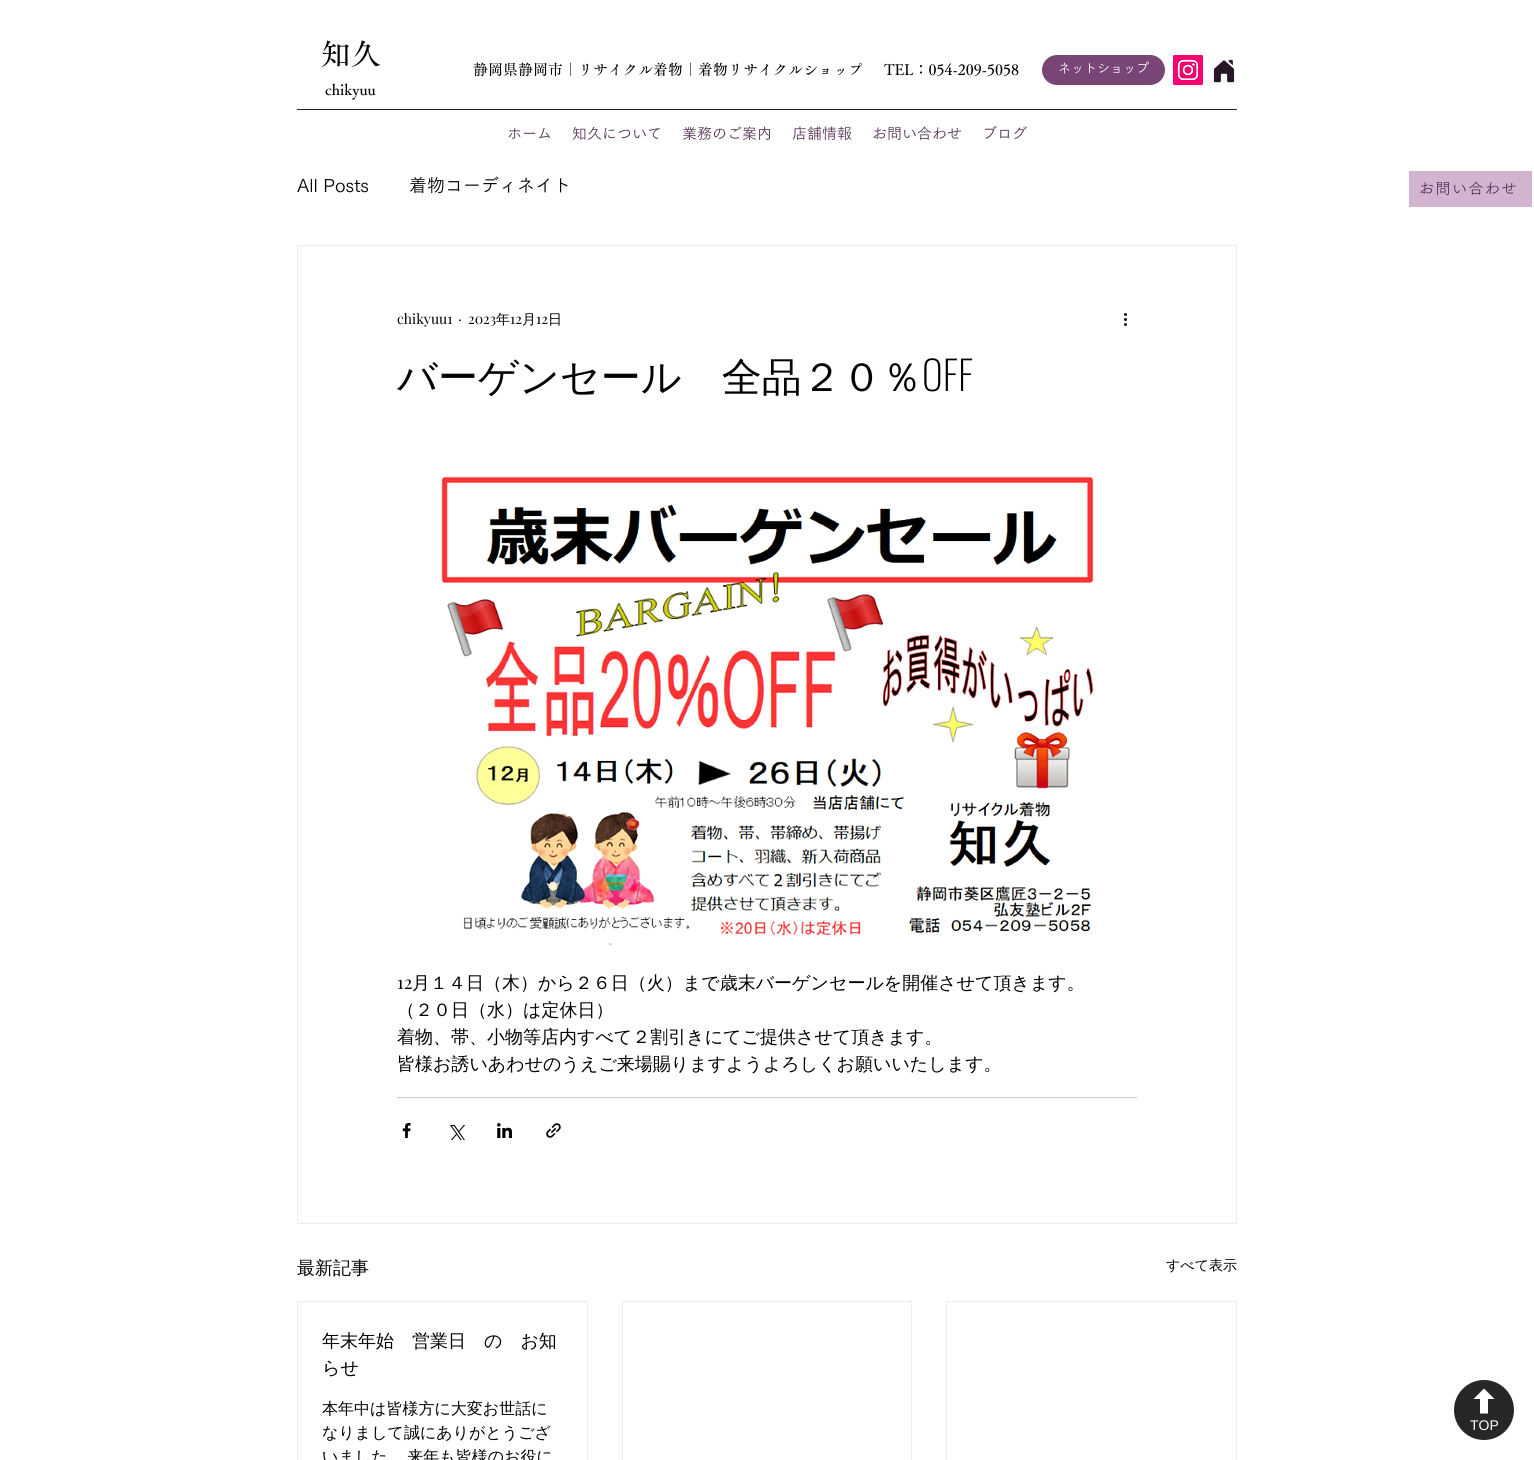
#include <cairo.h>
#include <math.h>
#include <stddef.h>


static void spaced_text(cairo_t *cr, double x, double y, const char *s, double letter, double word) {
    cairo_move_to(cr, x, y);
    while (*s) {
        char ch[5] = {0};
        int n = 0;
        do ch[n++] = *s++; while ((*s & 0xC0) == 0x80);
        cairo_show_text(cr, ch);
        cairo_rel_move_to(cr, letter + word * (*ch == ' '), 0);
    }
}

static void round_rect(cairo_t *cr, double x, double y, double w, double h, double r) {
    cairo_new_sub_path(cr);
    cairo_arc(cr, x + w - r, y + h - r, r, 0, M_PI / 2);
    cairo_arc(cr, x + r, y + h - r, r, M_PI / 2, M_PI);
    cairo_arc(cr, x + r, y + r, r, M_PI, 1.5 * M_PI);
    cairo_arc(cr, x + w - r, y + r, r, 1.5 * M_PI, 2 * M_PI);
    cairo_close_path(cr);
}

static void picture(cairo_t *cr, const char *path, double x, double y, double w, double h) {
    cairo_surface_t *image = cairo_image_surface_create_from_png(path);
    cairo_save(cr);
    cairo_set_source_surface(cr, image, x, y);
    cairo_rectangle(cr, x, y, w, h);
    cairo_fill(cr);
    cairo_restore(cr);
    cairo_surface_destroy(image);
}

int main(void) {
    cairo_surface_t *surface = cairo_image_surface_create(CAIRO_FORMAT_RGB24, 1534, 1460);
    cairo_t *cr = cairo_create(surface);
    cairo_font_options_t *options = cairo_font_options_create();
    cairo_font_options_set_hint_metrics(options, CAIRO_HINT_METRICS_OFF);
    cairo_font_options_set_hint_style(options, CAIRO_HINT_STYLE_NONE);
    cairo_set_font_options(cr, options);
    cairo_set_miter_limit(cr, 4);
    cairo_set_source_rgb(cr, 1, 1, 1);
    cairo_paint(cr);
    cairo_select_font_face(cr, "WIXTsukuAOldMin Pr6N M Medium", CAIRO_FONT_SLANT_NORMAL, CAIRO_FONT_WEIGHT_NORMAL);
    cairo_set_font_size(cr, 30);
    cairo_set_source_rgb(cr, 0, 0, 0);
    cairo_move_to(cr, 321, 65);
    cairo_show_text(cr, "知久");
    cairo_set_font_size(cr, 15);
    cairo_move_to(cr, 473, 75);
    cairo_show_text(cr, "静岡県静岡市｜リサイクル着物｜着物リサイクルショップ");
    cairo_move_to(cr, 884, 75);
    cairo_show_text(cr, "TEL：054-209-5058");
    cairo_set_source_rgb(cr, 0.475, 0.271, 0.467);
    round_rect(cr, 1042, 55, 123, 30, 15);
    cairo_fill(cr);
    cairo_select_font_face(cr, "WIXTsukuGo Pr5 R", CAIRO_FONT_SLANT_NORMAL, CAIRO_FONT_WEIGHT_NORMAL);
    cairo_set_font_size(cr, 13);
    cairo_set_source_rgb(cr, 1, 1, 1);
    cairo_move_to(cr, 1058, 73);
    cairo_show_text(cr, "ネットショップ");
    picture(cr, "img1.png", 1173, 55, 30, 30);
    picture(cr, "img2.png", 1213, 59, 22, 24);
    cairo_select_font_face(cr, "WIXTsukuAOldMin Pr6N M Medium", CAIRO_FONT_SLANT_NORMAL, CAIRO_FONT_WEIGHT_NORMAL);
    cairo_set_font_size(cr, 15);
    cairo_set_source_rgb(cr, 0, 0, 0);
    cairo_move_to(cr, 325, 95);
    cairo_show_text(cr, "chikyuu");
    cairo_set_source_rgb(cr, 0.149, 0.149, 0.149);
    cairo_rectangle(cr, 297, 109, 940, 1);
    cairo_fill(cr);
    cairo_select_font_face(cr, "WIXTsukuGo Pr5 R", CAIRO_FONT_SLANT_NORMAL, CAIRO_FONT_WEIGHT_NORMAL);
    cairo_set_source_rgb(cr, 0.318, 0.18, 0.31);
    cairo_move_to(cr, 507, 139);
    cairo_show_text(cr, "ホーム");
    cairo_move_to(cr, 572, 139);
    cairo_show_text(cr, "知久について");
    cairo_move_to(cr, 682, 139);
    cairo_show_text(cr, "業務のご案内");
    cairo_move_to(cr, 792, 139);
    cairo_show_text(cr, "店舗情報");
    cairo_move_to(cr, 872, 139);
    cairo_show_text(cr, "お問い合わせ");
    cairo_move_to(cr, 982, 139);
    cairo_show_text(cr, "ブログ");
    cairo_set_font_size(cr, 18);
    cairo_set_source_rgb(cr, 0, 0, 0);
    cairo_move_to(cr, 297, 192);
    cairo_show_text(cr, "All Posts");
    cairo_move_to(cr, 409, 192);
    cairo_show_text(cr, "着物コーディネイト");
    cairo_rectangle(cr, 297.5, 245.5, 939, 978);
    cairo_set_source_rgb(cr, 0.933, 0.925, 0.925);
    cairo_set_line_width(cr, 1);
    cairo_stroke(cr);
    cairo_select_font_face(cr, "Playfair Display", CAIRO_FONT_SLANT_NORMAL, CAIRO_FONT_WEIGHT_NORMAL);
    cairo_set_font_size(cr, 14);
    cairo_set_source_rgb(cr, 0, 0, 0);
    cairo_move_to(cr, 397, 324);
    cairo_show_text(cr, "chikyuu1");
    cairo_move_to(cr, 458, 324);
    cairo_show_text(cr, "·");
    cairo_move_to(cr, 468, 324);
    cairo_show_text(cr, "2023");
    cairo_select_font_face(cr, "WenQuanYi Zen Hei Medium", CAIRO_FONT_SLANT_NORMAL, CAIRO_FONT_WEIGHT_NORMAL);
    cairo_move_to(cr, 496, 324);
    cairo_show_text(cr, "年");
    cairo_select_font_face(cr, "Playfair Display", CAIRO_FONT_SLANT_NORMAL, CAIRO_FONT_WEIGHT_NORMAL);
    cairo_move_to(cr, 510, 324);
    cairo_show_text(cr, "12");
    cairo_select_font_face(cr, "WenQuanYi Zen Hei Medium", CAIRO_FONT_SLANT_NORMAL, CAIRO_FONT_WEIGHT_NORMAL);
    cairo_move_to(cr, 522, 324);
    cairo_show_text(cr, "月");
    cairo_select_font_face(cr, "Playfair Display", CAIRO_FONT_SLANT_NORMAL, CAIRO_FONT_WEIGHT_NORMAL);
    cairo_move_to(cr, 536, 324);
    cairo_show_text(cr, "12");
    cairo_select_font_face(cr, "WenQuanYi Zen Hei Medium", CAIRO_FONT_SLANT_NORMAL, CAIRO_FONT_WEIGHT_NORMAL);
    cairo_move_to(cr, 548, 324);
    cairo_show_text(cr, "日");
    picture(cr, "img3.png", 1124, 313, 3, 13);
    cairo_set_font_size(cr, 40);
    cairo_move_to(cr, 397, 391);
    cairo_show_text(cr, "バーゲンセール　全品２０％");
    cairo_select_font_face(cr, "Oswald ExtraLight", CAIRO_FONT_SLANT_NORMAL, CAIRO_FONT_WEIGHT_NORMAL);
    cairo_move_to(cr, 922, 391);
    cairo_show_text(cr, "OFF");
    picture(cr, "img4.png", 441, 476, 653, 469);
    cairo_select_font_face(cr, "Playfair Display", CAIRO_FONT_SLANT_NORMAL, CAIRO_FONT_WEIGHT_NORMAL);
    cairo_set_font_size(cr, 18);
    cairo_move_to(cr, 397, 989);
    cairo_show_text(cr, "12");
    cairo_select_font_face(cr, "WenQuanYi Zen Hei Medium", CAIRO_FONT_SLANT_NORMAL, CAIRO_FONT_WEIGHT_NORMAL);
    cairo_move_to(cr, 412, 989);
    cairo_show_text(cr, "月１４日（木）から２６日（火）まで歳末バーゲンセールを開催させて頂きます。");
    cairo_move_to(cr, 397, 1016);
    cairo_show_text(cr, "（２０日（水）は定休日）");
    cairo_move_to(cr, 397, 1043);
    cairo_show_text(cr, "着物、帯、小物等店内すべて２割引きにてご提供させて頂きます。");
    cairo_move_to(cr, 397, 1070);
    cairo_show_text(cr, "皆様お誘いあわせのうえご来場賜りますようよろしくお願いいたします。");
    cairo_set_source_rgb(cr, 0.8, 0.8, 0.8);
    cairo_rectangle(cr, 397, 1097, 740, 1);
    cairo_fill(cr);
    picture(cr, "img5.png", 402, 1123, 9, 15);
    picture(cr, "img6.png", 450, 1125, 15, 15);
    picture(cr, "img7.png", 497, 1123, 15, 15);
    picture(cr, "img8.png", 546, 1123, 15, 15);
    cairo_set_source_rgb(cr, 0, 0, 0);
    cairo_move_to(cr, 297, 1274);
    cairo_show_text(cr, "最新記事");
    cairo_set_font_size(cr, 14);
    cairo_move_to(cr, 1166, 1270);
    cairo_show_text(cr, "すべて表示");
    cairo_rectangle(cr, 297.5, 1301.5, 290, 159);
    cairo_set_source_rgb(cr, 0.933, 0.925, 0.925);
    cairo_stroke(cr);
    cairo_set_font_size(cr, 18);
    cairo_set_source_rgb(cr, 0, 0, 0);
    cairo_move_to(cr, 322, 1347);
    cairo_show_text(cr, "年末年始　営業日　の　お知");
    cairo_move_to(cr, 322, 1374);
    cairo_show_text(cr, "らせ");
    cairo_set_font_size(cr, 16);
    cairo_move_to(cr, 322, 1414);
    cairo_show_text(cr, "本年中は皆様方に大変お世話に");
    cairo_move_to(cr, 322, 1438);
    cairo_show_text(cr, "なりまして誠にありがとうござ");
    spaced_text(cr, 322, 1462, "いました。 来年も皆様のお役に", 0, -1);
    cairo_rectangle(cr, 622.5, 1301.5, 289, 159);
    cairo_set_source_rgb(cr, 0.933, 0.925, 0.925);
    cairo_stroke(cr);
    cairo_rectangle(cr, 946.5, 1301.5, 290, 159);
    cairo_stroke(cr);
    cairo_set_source_rgb(cr, 0.824, 0.706, 0.82);
    cairo_rectangle(cr, 1409, 171, 123, 36);
    cairo_fill(cr);
    cairo_select_font_face(cr, "WIXTsukuGo Pr5 R", CAIRO_FONT_SLANT_NORMAL, CAIRO_FONT_WEIGHT_NORMAL);
    cairo_set_font_size(cr, 15);
    cairo_set_source_rgb(cr, 0.318, 0.18, 0.31);
    spaced_text(cr, 1419, 194, "お問い合わせ", 1.5, 0);
    cairo_set_source_rgb(cr, 0.157, 0.149, 0.149);
    cairo_new_path(cr);
    cairo_arc(cr, 1484, 1410, 30, 0, 2 * M_PI);
    cairo_fill(cr);
    cairo_set_source_rgb(cr, 1, 1, 1);
    cairo_new_path(cr);
    cairo_move_to(cr, 1494.5, 1399);
    cairo_line_to(cr, 1484, 1388.5);
    cairo_line_to(cr, 1473.5, 1399);
    cairo_line_to(cr, 1480, 1399);
    cairo_line_to(cr, 1480, 1413.5);
    cairo_line_to(cr, 1488, 1413.5);
    cairo_line_to(cr, 1488, 1399);
    cairo_close_path(cr);
    cairo_fill(cr);
    cairo_select_font_face(cr, "Liberation Sans", CAIRO_FONT_SLANT_NORMAL, CAIRO_FONT_WEIGHT_NORMAL);
    cairo_set_font_size(cr, 14);
    cairo_move_to(cr, 1470, 1430);
    cairo_show_text(cr, "TOP");
    cairo_surface_write_to_png(surface, "page.png");
    cairo_font_options_destroy(options);
    cairo_destroy(cr);
    cairo_surface_destroy(surface);
    return 0;
}
